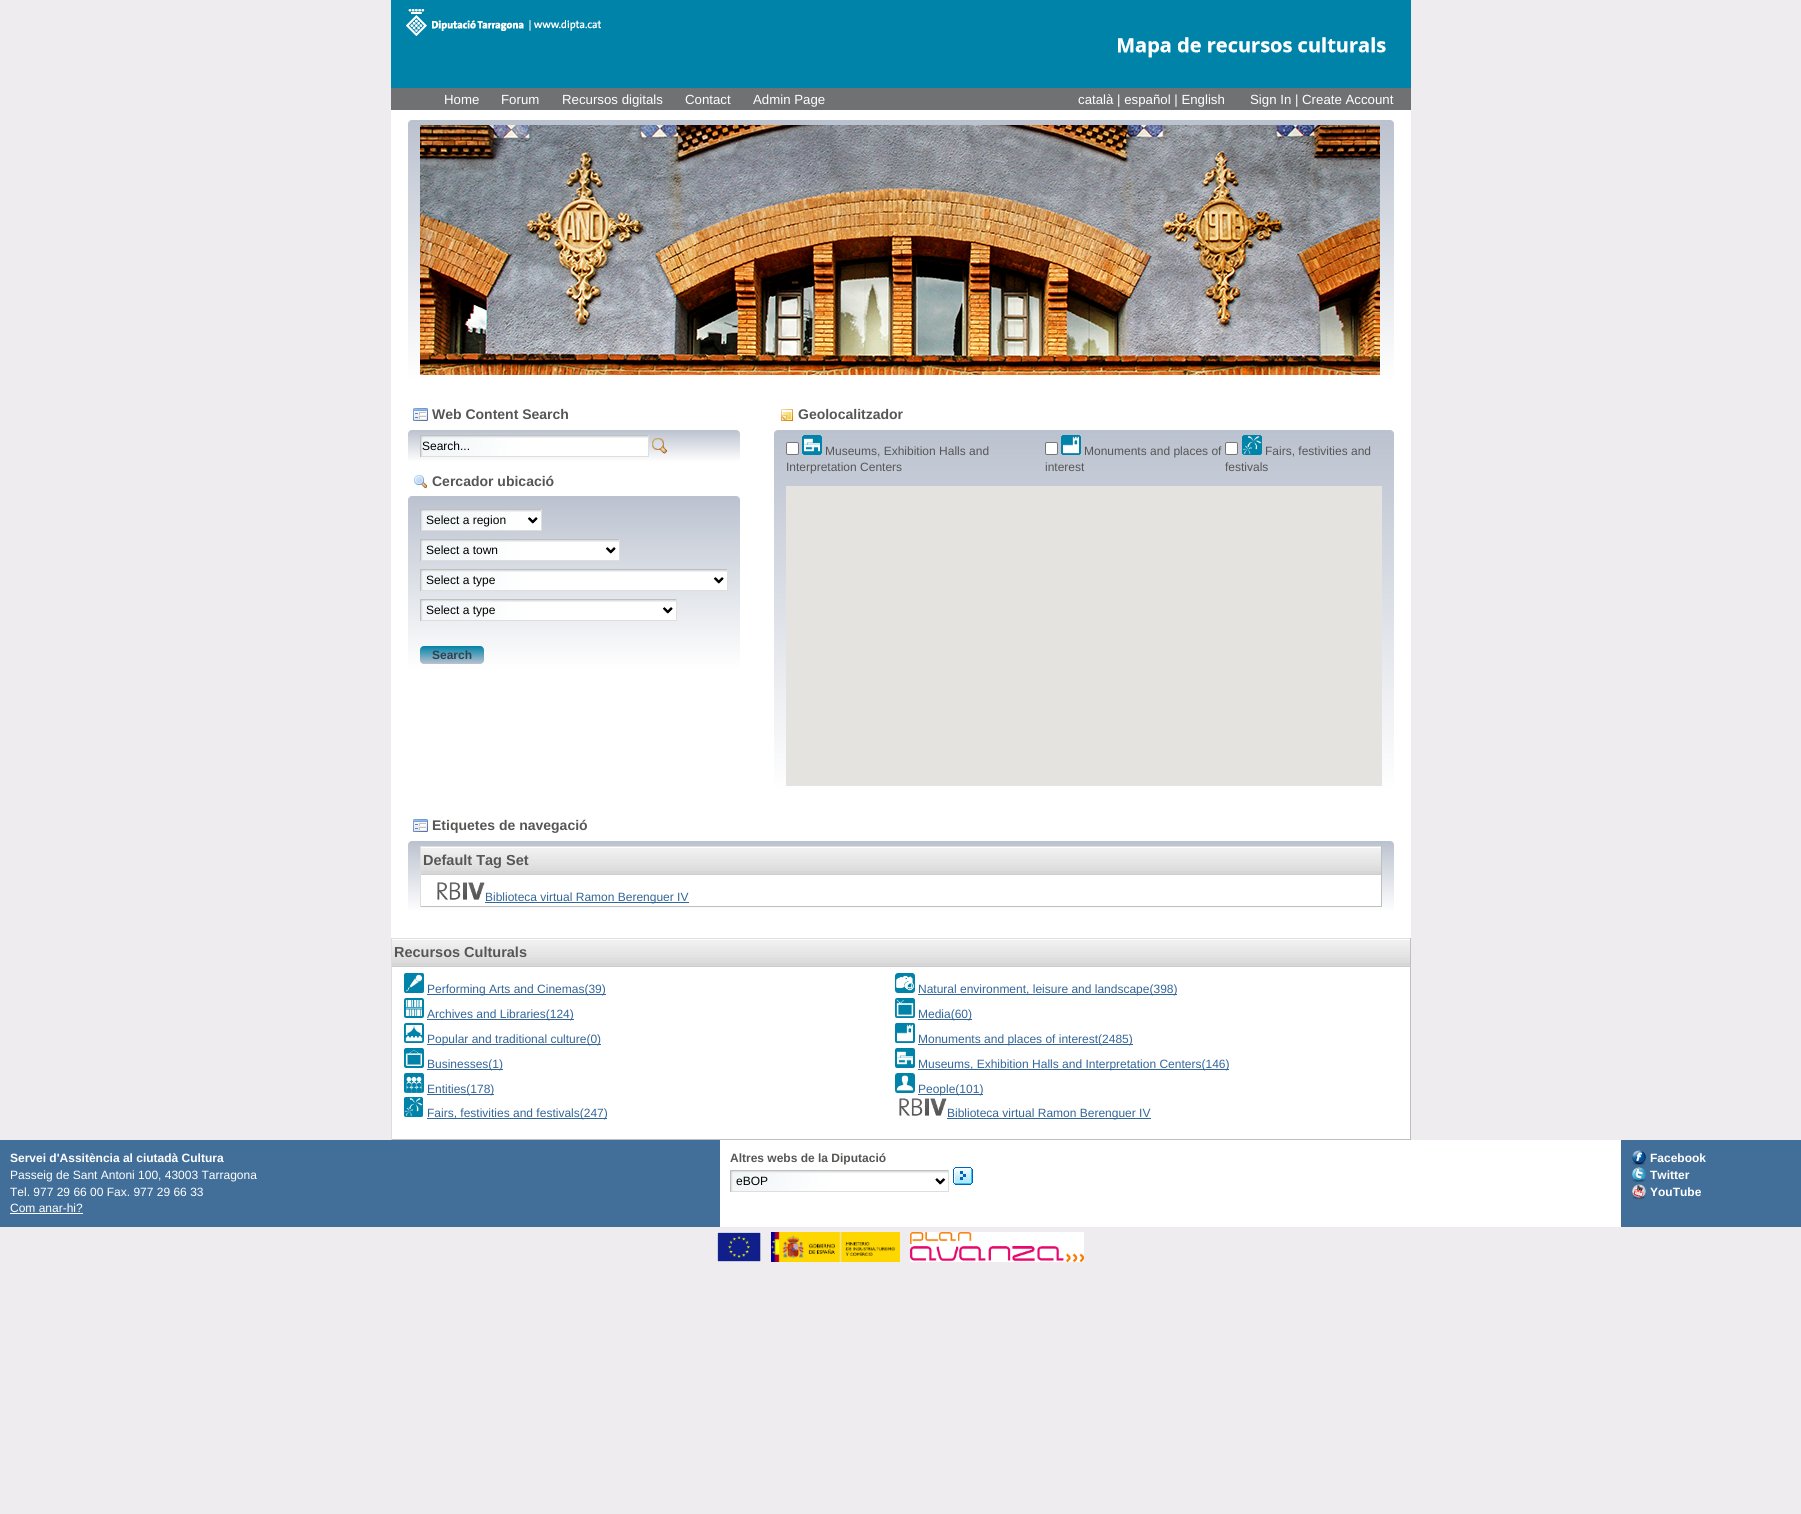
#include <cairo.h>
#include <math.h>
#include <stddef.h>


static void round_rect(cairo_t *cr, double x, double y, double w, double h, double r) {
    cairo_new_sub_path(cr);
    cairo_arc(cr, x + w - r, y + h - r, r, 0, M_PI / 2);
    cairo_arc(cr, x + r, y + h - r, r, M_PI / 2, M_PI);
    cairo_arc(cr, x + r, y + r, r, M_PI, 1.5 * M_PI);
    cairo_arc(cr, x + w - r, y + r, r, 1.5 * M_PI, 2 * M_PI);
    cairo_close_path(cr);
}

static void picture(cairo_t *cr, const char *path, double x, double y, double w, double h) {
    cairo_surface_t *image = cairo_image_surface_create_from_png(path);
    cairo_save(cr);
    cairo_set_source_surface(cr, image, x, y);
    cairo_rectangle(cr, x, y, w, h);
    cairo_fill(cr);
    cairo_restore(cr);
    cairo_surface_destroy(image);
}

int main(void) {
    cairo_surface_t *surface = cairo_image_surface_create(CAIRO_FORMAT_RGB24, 1801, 1514);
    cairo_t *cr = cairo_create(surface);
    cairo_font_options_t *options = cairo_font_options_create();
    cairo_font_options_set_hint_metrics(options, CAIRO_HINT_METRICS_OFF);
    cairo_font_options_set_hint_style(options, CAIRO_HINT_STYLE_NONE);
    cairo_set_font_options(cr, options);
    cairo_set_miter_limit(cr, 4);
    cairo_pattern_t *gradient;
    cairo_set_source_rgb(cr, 0.937, 0.922, 0.937);
    cairo_paint(cr);
    cairo_set_source_rgb(cr, 0, 0.514, 0.663);
    cairo_rectangle(cr, 391, 0, 1020, 88);
    cairo_fill(cr);
    picture(cr, "img1.png", 406, 9, 195, 27);
    picture(cr, "img2.png", 1118, 37, 268, 22);
    cairo_set_source_rgb(cr, 0.439, 0.443, 0.451);
    cairo_rectangle(cr, 391, 88, 1020, 22);
    cairo_fill(cr);
    cairo_select_font_face(cr, "Liberation Sans", CAIRO_FONT_SLANT_NORMAL, CAIRO_FONT_WEIGHT_NORMAL);
    cairo_set_font_size(cr, 13.25);
    cairo_set_source_rgb(cr, 1, 1, 1);
    cairo_move_to(cr, 444, 104);
    cairo_show_text(cr, "Home");
    cairo_move_to(cr, 501, 104);
    cairo_show_text(cr, "Forum");
    cairo_move_to(cr, 562, 104);
    cairo_show_text(cr, "Recursos digitals");
    cairo_move_to(cr, 685, 104);
    cairo_show_text(cr, "Contact");
    cairo_move_to(cr, 753, 104);
    cairo_show_text(cr, "Admin Page");
    cairo_move_to(cr, 1078, 104);
    cairo_show_text(cr, "català | español | English");
    cairo_move_to(cr, 1250, 104);
    cairo_show_text(cr, "Sign In | Create Account");
    cairo_rectangle(cr, 391, 110, 1020, 1029);
    cairo_fill(cr);
    gradient = cairo_pattern_create_linear(408, 120, 408, 380);
    cairo_pattern_add_color_stop_rgba(gradient, 0, 0.733, 0.761, 0.812, 1);
    cairo_pattern_add_color_stop_rgba(gradient, 1, 1, 1, 1, 1);
    cairo_set_source(cr, gradient);
    cairo_pattern_destroy(gradient);
    round_rect(cr, 408, 120, 986, 260, 4);
    cairo_fill(cr);
    picture(cr, "img3.png", 420, 125, 960, 250);
    picture(cr, "img4.png", 413, 408, 15, 13);
    cairo_select_font_face(cr, "Liberation Sans", CAIRO_FONT_SLANT_NORMAL, CAIRO_FONT_WEIGHT_BOLD);
    cairo_set_font_size(cr, 14);
    cairo_set_source_rgb(cr, 0.337, 0.337, 0.333);
    cairo_move_to(cr, 432, 419);
    cairo_show_text(cr, "Web Content Search");
    gradient = cairo_pattern_create_linear(408, 430, 408, 462);
    cairo_pattern_add_color_stop_rgba(gradient, 0, 0.733, 0.761, 0.812, 1);
    cairo_pattern_add_color_stop_rgba(gradient, 1, 1, 1, 1, 1);
    cairo_set_source(cr, gradient);
    cairo_pattern_destroy(gradient);
    round_rect(cr, 408, 430, 332, 32, 4);
    cairo_fill(cr);
    picture(cr, "img5.png", 421, 436, 227, 20);
    cairo_set_source_rgb(cr, 0.749, 0.749, 0.749);
    cairo_rectangle(cr, 420, 435, 229, 1);
    cairo_fill(cr);
    cairo_set_source_rgb(cr, 0.871, 0.871, 0.871);
    cairo_rectangle(cr, 648, 435, 1, 22);
    cairo_fill(cr);
    cairo_rectangle(cr, 420, 456, 229, 1);
    cairo_fill(cr);
    cairo_set_source_rgb(cr, 0.749, 0.749, 0.749);
    cairo_rectangle(cr, 420, 435, 1, 22);
    cairo_fill(cr);
    cairo_select_font_face(cr, "Liberation Sans", CAIRO_FONT_SLANT_NORMAL, CAIRO_FONT_WEIGHT_NORMAL);
    cairo_set_font_size(cr, 12);
    cairo_set_source_rgb(cr, 0, 0, 0);
    cairo_move_to(cr, 422, 450);
    cairo_show_text(cr, "Search...");
    picture(cr, "img6.png", 652, 438, 16, 16);
    picture(cr, "img7.png", 414, 475, 13, 14);
    cairo_select_font_face(cr, "Liberation Sans", CAIRO_FONT_SLANT_NORMAL, CAIRO_FONT_WEIGHT_BOLD);
    cairo_set_font_size(cr, 14);
    cairo_set_source_rgb(cr, 0.337, 0.337, 0.333);
    cairo_move_to(cr, 432, 486);
    cairo_show_text(cr, "Cercador ubicació");
    gradient = cairo_pattern_create_linear(408, 496, 408, 669);
    cairo_pattern_add_color_stop_rgba(gradient, 0, 0.733, 0.761, 0.812, 1);
    cairo_pattern_add_color_stop_rgba(gradient, 1, 1, 1, 1, 1);
    cairo_set_source(cr, gradient);
    cairo_pattern_destroy(gradient);
    round_rect(cr, 408, 496, 332, 173, 4);
    cairo_fill(cr);
    picture(cr, "img8.png", 421, 510, 120, 20);
    cairo_set_source_rgb(cr, 0.749, 0.749, 0.749);
    cairo_rectangle(cr, 420, 509, 122, 1);
    cairo_fill(cr);
    cairo_set_source_rgb(cr, 0.871, 0.871, 0.871);
    cairo_rectangle(cr, 541, 509, 1, 22);
    cairo_fill(cr);
    cairo_rectangle(cr, 420, 530, 122, 1);
    cairo_fill(cr);
    cairo_set_source_rgb(cr, 0.749, 0.749, 0.749);
    cairo_rectangle(cr, 420, 509, 1, 22);
    cairo_fill(cr);
    cairo_new_path(cr);
    cairo_move_to(cr, 528.5, 518);
    cairo_line_to(cr, 532.5, 522);
    cairo_line_to(cr, 536.5, 518);
    cairo_set_source_rgb(cr, 0, 0, 0);
    cairo_stroke(cr);
    cairo_select_font_face(cr, "Liberation Sans", CAIRO_FONT_SLANT_NORMAL, CAIRO_FONT_WEIGHT_NORMAL);
    cairo_set_font_size(cr, 12);
    cairo_move_to(cr, 426, 524);
    cairo_show_text(cr, "Select a region");
    picture(cr, "img9.png", 421, 540, 198, 20);
    cairo_set_source_rgb(cr, 0.749, 0.749, 0.749);
    cairo_rectangle(cr, 420, 539, 200, 1);
    cairo_fill(cr);
    cairo_set_source_rgb(cr, 0.871, 0.871, 0.871);
    cairo_rectangle(cr, 619, 539, 1, 22);
    cairo_fill(cr);
    cairo_rectangle(cr, 420, 560, 200, 1);
    cairo_fill(cr);
    cairo_set_source_rgb(cr, 0.749, 0.749, 0.749);
    cairo_rectangle(cr, 420, 539, 1, 22);
    cairo_fill(cr);
    cairo_new_path(cr);
    cairo_move_to(cr, 606.5, 548);
    cairo_line_to(cr, 610.5, 552);
    cairo_line_to(cr, 614.5, 548);
    cairo_set_source_rgb(cr, 0, 0, 0);
    cairo_stroke(cr);
    cairo_move_to(cr, 426, 554);
    cairo_show_text(cr, "Select a town");
    picture(cr, "img10.png", 421, 570, 306, 20);
    cairo_set_source_rgb(cr, 0.749, 0.749, 0.749);
    cairo_rectangle(cr, 420, 569, 308, 1);
    cairo_fill(cr);
    cairo_set_source_rgb(cr, 0.871, 0.871, 0.871);
    cairo_rectangle(cr, 727, 569, 1, 22);
    cairo_fill(cr);
    cairo_rectangle(cr, 420, 590, 308, 1);
    cairo_fill(cr);
    cairo_set_source_rgb(cr, 0.749, 0.749, 0.749);
    cairo_rectangle(cr, 420, 569, 1, 22);
    cairo_fill(cr);
    cairo_new_path(cr);
    cairo_move_to(cr, 714.5, 578);
    cairo_line_to(cr, 718.5, 582);
    cairo_line_to(cr, 722.5, 578);
    cairo_set_source_rgb(cr, 0, 0, 0);
    cairo_stroke(cr);
    cairo_move_to(cr, 426, 584);
    cairo_show_text(cr, "Select a type");
    picture(cr, "img11.png", 421, 600, 255, 20);
    cairo_set_source_rgb(cr, 0.749, 0.749, 0.749);
    cairo_rectangle(cr, 420, 599, 257, 1);
    cairo_fill(cr);
    cairo_set_source_rgb(cr, 0.871, 0.871, 0.871);
    cairo_rectangle(cr, 676, 599, 1, 22);
    cairo_fill(cr);
    cairo_rectangle(cr, 420, 620, 257, 1);
    cairo_fill(cr);
    cairo_set_source_rgb(cr, 0.749, 0.749, 0.749);
    cairo_rectangle(cr, 420, 599, 1, 22);
    cairo_fill(cr);
    cairo_new_path(cr);
    cairo_move_to(cr, 663.5, 608);
    cairo_line_to(cr, 667.5, 612);
    cairo_line_to(cr, 671.5, 608);
    cairo_set_source_rgb(cr, 0, 0, 0);
    cairo_stroke(cr);
    cairo_move_to(cr, 426, 614);
    cairo_show_text(cr, "Select a type");
    gradient = cairo_pattern_create_linear(420, 646, 420, 664);
    cairo_pattern_add_color_stop_rgba(gradient, 0, 0, 0.514, 0.663, 1);
    cairo_pattern_add_color_stop_rgba(gradient, 1, 0.733, 0.761, 0.812, 1);
    cairo_set_source(cr, gradient);
    cairo_pattern_destroy(gradient);
    round_rect(cr, 420, 646, 64, 18, 4);
    cairo_fill(cr);
    cairo_select_font_face(cr, "Liberation Sans", CAIRO_FONT_SLANT_NORMAL, CAIRO_FONT_WEIGHT_BOLD);
    cairo_set_source_rgb(cr, 0.204, 0.251, 0.31);
    cairo_move_to(cr, 432, 659);
    cairo_show_text(cr, "Search");
    picture(cr, "img12.png", 781, 409, 12, 12);
    cairo_set_font_size(cr, 14);
    cairo_set_source_rgb(cr, 0.337, 0.337, 0.333);
    cairo_move_to(cr, 798, 419);
    cairo_show_text(cr, "Geolocalitzador");
    gradient = cairo_pattern_create_linear(774, 430, 774, 791);
    cairo_pattern_add_color_stop_rgba(gradient, 0, 0.733, 0.761, 0.812, 1);
    cairo_pattern_add_color_stop_rgba(gradient, 1, 1, 1, 1, 1);
    cairo_set_source(cr, gradient);
    cairo_pattern_destroy(gradient);
    round_rect(cr, 774, 430, 620, 361, 4);
    cairo_fill(cr);
    cairo_set_source_rgb(cr, 1, 1, 1);
    round_rect(cr, 786.5, 442.5, 12, 12, 1.5);
    cairo_fill_preserve(cr);
    cairo_set_source_rgb(cr, 0.463, 0.463, 0.463);
    cairo_set_line_width(cr, 1);
    cairo_stroke(cr);
    picture(cr, "img13.png", 802, 435, 20, 20);
    cairo_select_font_face(cr, "Liberation Sans", CAIRO_FONT_SLANT_NORMAL, CAIRO_FONT_WEIGHT_NORMAL);
    cairo_set_font_size(cr, 12);
    cairo_set_source_rgb(cr, 0.337, 0.337, 0.333);
    cairo_move_to(cr, 825, 455);
    cairo_show_text(cr, "Museums, Exhibition Halls and");
    cairo_move_to(cr, 786, 471);
    cairo_show_text(cr, "Interpretation Centers");
    cairo_set_source_rgb(cr, 1, 1, 1);
    round_rect(cr, 1045.5, 442.5, 12, 12, 1.5);
    cairo_fill_preserve(cr);
    cairo_set_source_rgb(cr, 0.463, 0.463, 0.463);
    cairo_stroke(cr);
    picture(cr, "img14.png", 1061, 435, 20, 20);
    cairo_set_source_rgb(cr, 0.337, 0.337, 0.333);
    cairo_move_to(cr, 1084, 455);
    cairo_show_text(cr, "Monuments and places of");
    cairo_move_to(cr, 1045, 471);
    cairo_show_text(cr, "interest");
    cairo_set_source_rgb(cr, 1, 1, 1);
    round_rect(cr, 1225.5, 442.5, 12, 12, 1.5);
    cairo_fill_preserve(cr);
    cairo_set_source_rgb(cr, 0.463, 0.463, 0.463);
    cairo_stroke(cr);
    picture(cr, "img15.png", 1242, 435, 20, 20);
    cairo_set_source_rgb(cr, 0.337, 0.337, 0.333);
    cairo_move_to(cr, 1265, 455);
    cairo_show_text(cr, "Fairs, festivities and");
    cairo_move_to(cr, 1225, 471);
    cairo_show_text(cr, "festivals");
    cairo_set_source_rgb(cr, 0.898, 0.89, 0.875);
    cairo_rectangle(cr, 786, 486, 596, 300);
    cairo_fill(cr);
    picture(cr, "img4.png", 413, 819, 15, 13);
    cairo_select_font_face(cr, "Liberation Sans", CAIRO_FONT_SLANT_NORMAL, CAIRO_FONT_WEIGHT_BOLD);
    cairo_set_font_size(cr, 14);
    cairo_set_source_rgb(cr, 0.337, 0.337, 0.333);
    cairo_move_to(cr, 432, 830);
    cairo_show_text(cr, "Etiquetes de navegació");
    gradient = cairo_pattern_create_linear(408, 841, 408, 912);
    cairo_pattern_add_color_stop_rgba(gradient, 0, 0.733, 0.761, 0.812, 1);
    cairo_pattern_add_color_stop_rgba(gradient, 1, 1, 1, 1, 1);
    cairo_set_source(cr, gradient);
    cairo_pattern_destroy(gradient);
    round_rect(cr, 408, 841, 986, 71, 4);
    cairo_fill(cr);
    cairo_set_source_rgb(cr, 1, 1, 1);
    cairo_rectangle(cr, 421, 875, 960, 31);
    cairo_fill(cr);
    cairo_set_source_rgb(cr, 0.871, 0.871, 0.871);
    cairo_rectangle(cr, 420, 846, 962, 1);
    cairo_fill(cr);
    cairo_set_source_rgb(cr, 0.749, 0.749, 0.749);
    cairo_rectangle(cr, 1381, 846, 1, 61);
    cairo_fill(cr);
    cairo_rectangle(cr, 420, 906, 962, 1);
    cairo_fill(cr);
    cairo_set_source_rgb(cr, 0.871, 0.871, 0.871);
    cairo_rectangle(cr, 420, 846, 1, 61);
    cairo_fill(cr);
    cairo_set_source_rgb(cr, 0.839, 0.839, 0.839);
    cairo_rectangle(cr, 421, 871, 960, 3);
    cairo_fill(cr);
    picture(cr, "img16.png", 421, 847, 960, 24);
    cairo_set_source_rgb(cr, 0.804, 0.804, 0.804);
    cairo_rectangle(cr, 421, 874, 960, 1);
    cairo_fill(cr);
    cairo_set_font_size(cr, 14.5);
    cairo_set_source_rgb(cr, 0.337, 0.337, 0.333);
    cairo_move_to(cr, 423, 865);
    cairo_show_text(cr, "Default Tag Set");
    picture(cr, "img17.png", 437, 882, 48, 18);
    cairo_set_source_rgb(cr, 0.2, 0.4, 0.6);
    cairo_rectangle(cr, 485, 902, 204, 1);
    cairo_fill(cr);
    cairo_select_font_face(cr, "Liberation Sans", CAIRO_FONT_SLANT_NORMAL, CAIRO_FONT_WEIGHT_NORMAL);
    cairo_set_font_size(cr, 12);
    cairo_move_to(cr, 485, 901);
    cairo_show_text(cr, "Biblioteca virtual Ramon Berenguer IV");
    cairo_set_source_rgb(cr, 0.871, 0.871, 0.871);
    cairo_rectangle(cr, 391, 938, 1020, 1);
    cairo_fill(cr);
    cairo_set_source_rgb(cr, 0.749, 0.749, 0.749);
    cairo_rectangle(cr, 1410, 938, 1, 202);
    cairo_fill(cr);
    cairo_rectangle(cr, 391, 1139, 1020, 1);
    cairo_fill(cr);
    cairo_set_source_rgb(cr, 0.871, 0.871, 0.871);
    cairo_rectangle(cr, 391, 938, 1, 202);
    cairo_fill(cr);
    cairo_set_source_rgb(cr, 0.839, 0.839, 0.839);
    cairo_rectangle(cr, 392, 963, 1018, 3);
    cairo_fill(cr);
    picture(cr, "img18.png", 392, 939, 1018, 24);
    cairo_set_source_rgb(cr, 0.804, 0.804, 0.804);
    cairo_rectangle(cr, 392, 966, 1018, 1);
    cairo_fill(cr);
    cairo_select_font_face(cr, "Liberation Sans", CAIRO_FONT_SLANT_NORMAL, CAIRO_FONT_WEIGHT_BOLD);
    cairo_set_font_size(cr, 14.5);
    cairo_set_source_rgb(cr, 0.337, 0.337, 0.333);
    cairo_move_to(cr, 394, 957);
    cairo_show_text(cr, "Recursos Culturals");
    picture(cr, "img19.png", 404, 973, 20, 20);
    cairo_set_source_rgb(cr, 0.2, 0.4, 0.6);
    cairo_rectangle(cr, 427, 994, 179, 1);
    cairo_fill(cr);
    cairo_select_font_face(cr, "Liberation Sans", CAIRO_FONT_SLANT_NORMAL, CAIRO_FONT_WEIGHT_NORMAL);
    cairo_set_font_size(cr, 12);
    cairo_move_to(cr, 427, 993);
    cairo_show_text(cr, "Performing Arts and Cinemas(39)");
    picture(cr, "img20.png", 404, 998, 20, 20);
    cairo_rectangle(cr, 427, 1019, 147, 1);
    cairo_fill(cr);
    cairo_move_to(cr, 427, 1018);
    cairo_show_text(cr, "Archives and Libraries(124)");
    picture(cr, "img21.png", 404, 1023, 20, 20);
    cairo_rectangle(cr, 427, 1044, 174, 1);
    cairo_fill(cr);
    cairo_move_to(cr, 427, 1043);
    cairo_show_text(cr, "Popular and traditional culture(0)");
    picture(cr, "img22.png", 404, 1048, 20, 20);
    cairo_rectangle(cr, 427, 1069, 76, 1);
    cairo_fill(cr);
    cairo_move_to(cr, 427, 1068);
    cairo_show_text(cr, "Businesses(1)");
    picture(cr, "img23.png", 404, 1073, 20, 20);
    cairo_rectangle(cr, 427, 1094, 67, 1);
    cairo_fill(cr);
    cairo_move_to(cr, 427, 1093);
    cairo_show_text(cr, "Entities(178)");
    picture(cr, "img24.png", 404, 1097, 19, 20);
    cairo_rectangle(cr, 427, 1118, 180, 1);
    cairo_fill(cr);
    cairo_move_to(cr, 427, 1117);
    cairo_show_text(cr, "Fairs, festivities and festivals(247)");
    picture(cr, "img25.png", 895, 973, 20, 20);
    cairo_rectangle(cr, 918, 994, 259, 1);
    cairo_fill(cr);
    cairo_move_to(cr, 918, 993);
    cairo_show_text(cr, "Natural environment, leisure and landscape(398)");
    picture(cr, "img26.png", 895, 998, 20, 20);
    cairo_rectangle(cr, 918, 1019, 54, 1);
    cairo_fill(cr);
    cairo_move_to(cr, 918, 1018);
    cairo_show_text(cr, "Media(60)");
    picture(cr, "img27.png", 895, 1023, 20, 20);
    cairo_rectangle(cr, 918, 1044, 215, 1);
    cairo_fill(cr);
    cairo_move_to(cr, 918, 1043);
    cairo_show_text(cr, "Monuments and places of interest(2485)");
    picture(cr, "img13.png", 895, 1048, 20, 20);
    cairo_rectangle(cr, 918, 1069, 311, 1);
    cairo_fill(cr);
    cairo_move_to(cr, 918, 1068);
    cairo_show_text(cr, "Museums, Exhibition Halls and Interpretation Centers(146)");
    picture(cr, "img28.png", 895, 1073, 20, 20);
    cairo_rectangle(cr, 918, 1094, 65, 1);
    cairo_fill(cr);
    cairo_move_to(cr, 918, 1093);
    cairo_show_text(cr, "People(101)");
    picture(cr, "img17.png", 899, 1098, 48, 18);
    cairo_rectangle(cr, 947, 1118, 204, 1);
    cairo_fill(cr);
    cairo_move_to(cr, 947, 1117);
    cairo_show_text(cr, "Biblioteca virtual Ramon Berenguer IV");
    cairo_set_source_rgb(cr, 0.259, 0.435, 0.6);
    cairo_rectangle(cr, 0, 1140, 720, 87);
    cairo_fill(cr);
    cairo_select_font_face(cr, "Liberation Sans", CAIRO_FONT_SLANT_NORMAL, CAIRO_FONT_WEIGHT_BOLD);
    cairo_set_source_rgb(cr, 1, 1, 1);
    cairo_move_to(cr, 10, 1162);
    cairo_show_text(cr, "Servei d'Assitència al ciutadà Cultura");
    cairo_select_font_face(cr, "Liberation Sans", CAIRO_FONT_SLANT_NORMAL, CAIRO_FONT_WEIGHT_NORMAL);
    cairo_move_to(cr, 10, 1179);
    cairo_show_text(cr, "Passeig de Sant Antoni 100, 43003 Tarragona");
    cairo_move_to(cr, 10, 1196);
    cairo_show_text(cr, "Tel. 977 29 66 00 Fax. 977 29 66 33");
    cairo_move_to(cr, 10, 1212);
    cairo_show_text(cr, "Com anar-hi?");
    cairo_rectangle(cr, 10, 1213, 73, 1);
    cairo_fill(cr);
    cairo_rectangle(cr, 720, 1140, 901, 87);
    cairo_fill(cr);
    cairo_select_font_face(cr, "Liberation Sans", CAIRO_FONT_SLANT_NORMAL, CAIRO_FONT_WEIGHT_BOLD);
    cairo_set_source_rgb(cr, 0.337, 0.337, 0.333);
    cairo_move_to(cr, 730, 1162);
    cairo_show_text(cr, "Altres webs de la Diputació");
    picture(cr, "img29.png", 731, 1171, 217, 20);
    cairo_set_source_rgb(cr, 0.749, 0.749, 0.749);
    cairo_rectangle(cr, 730, 1170, 219, 1);
    cairo_fill(cr);
    cairo_set_source_rgb(cr, 0.871, 0.871, 0.871);
    cairo_rectangle(cr, 948, 1170, 1, 22);
    cairo_fill(cr);
    cairo_rectangle(cr, 730, 1191, 219, 1);
    cairo_fill(cr);
    cairo_set_source_rgb(cr, 0.749, 0.749, 0.749);
    cairo_rectangle(cr, 730, 1170, 1, 22);
    cairo_fill(cr);
    cairo_new_path(cr);
    cairo_move_to(cr, 936.5, 1179);
    cairo_line_to(cr, 940.5, 1183);
    cairo_line_to(cr, 944.5, 1179);
    cairo_set_source_rgb(cr, 0, 0, 0);
    cairo_set_line_width(cr, 2);
    cairo_stroke(cr);
    cairo_select_font_face(cr, "Liberation Sans", CAIRO_FONT_SLANT_NORMAL, CAIRO_FONT_WEIGHT_NORMAL);
    cairo_move_to(cr, 736, 1185);
    cairo_show_text(cr, "eBOP");
    picture(cr, "img30.png", 953, 1167, 20, 18);
    cairo_set_source_rgb(cr, 0.259, 0.435, 0.6);
    cairo_rectangle(cr, 1621, 1140, 180, 87);
    cairo_fill(cr);
    picture(cr, "img31.png", 1632, 1150, 14, 16);
    cairo_select_font_face(cr, "Liberation Sans", CAIRO_FONT_SLANT_NORMAL, CAIRO_FONT_WEIGHT_BOLD);
    cairo_set_source_rgb(cr, 1, 1, 1);
    cairo_move_to(cr, 1650, 1162);
    cairo_show_text(cr, "Facebook");
    picture(cr, "img32.png", 1632, 1167, 14, 16);
    cairo_move_to(cr, 1650, 1179);
    cairo_show_text(cr, "Twitter");
    picture(cr, "img33.png", 1632, 1184, 14, 16);
    cairo_move_to(cr, 1650, 1196);
    cairo_show_text(cr, "YouTube");
    picture(cr, "img34.png", 717, 1232, 44, 30);
    picture(cr, "img35.png", 771, 1232, 129, 30);
    picture(cr, "img36.png", 910, 1232, 174, 30);
    cairo_surface_write_to_png(surface, "page.png");
    cairo_font_options_destroy(options);
    cairo_destroy(cr);
    cairo_surface_destroy(surface);
    return 0;
}
